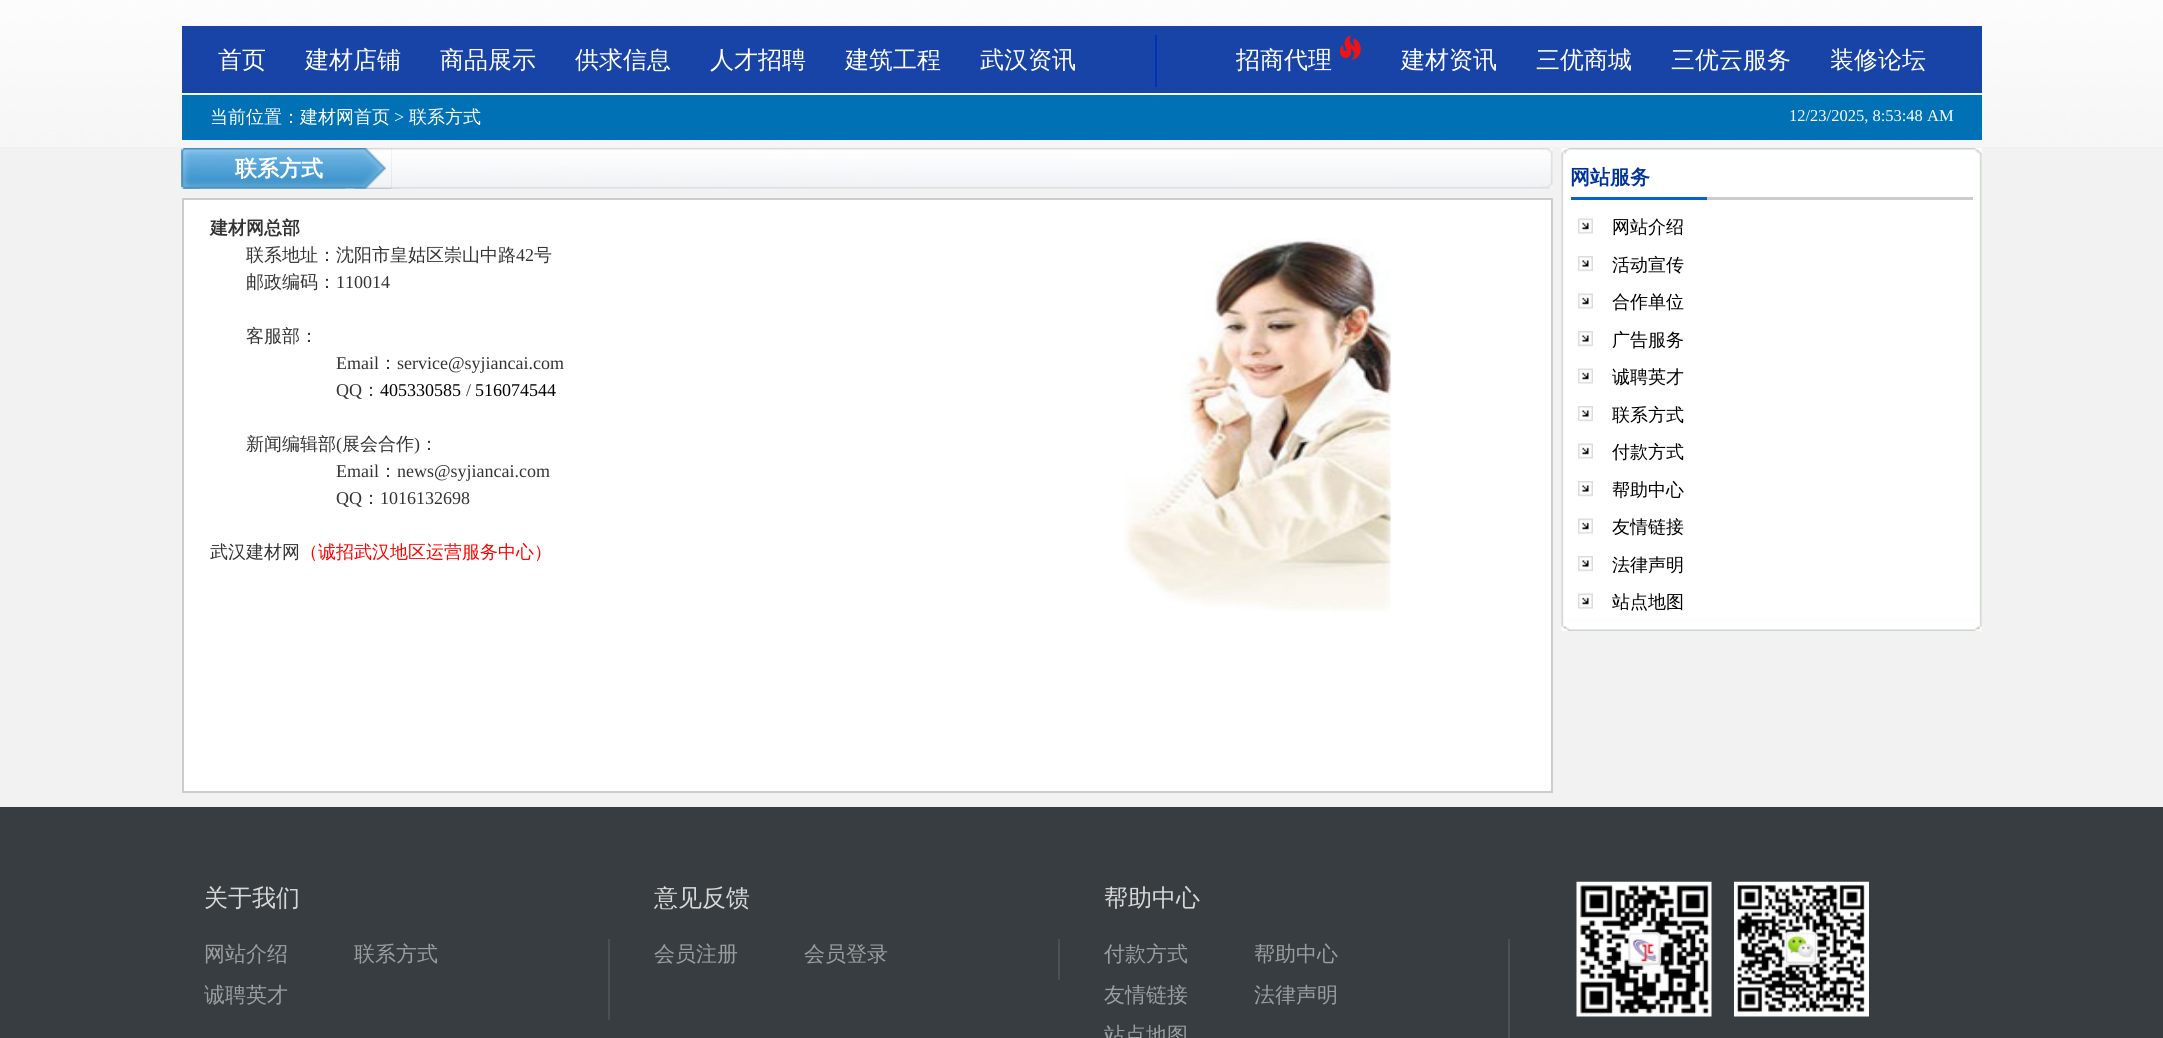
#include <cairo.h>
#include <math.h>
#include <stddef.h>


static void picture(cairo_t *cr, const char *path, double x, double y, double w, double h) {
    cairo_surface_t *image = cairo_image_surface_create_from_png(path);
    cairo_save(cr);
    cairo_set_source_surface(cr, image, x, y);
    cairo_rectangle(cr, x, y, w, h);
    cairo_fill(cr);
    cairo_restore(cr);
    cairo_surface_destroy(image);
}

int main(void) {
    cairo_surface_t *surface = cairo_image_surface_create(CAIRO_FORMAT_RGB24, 2163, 1038);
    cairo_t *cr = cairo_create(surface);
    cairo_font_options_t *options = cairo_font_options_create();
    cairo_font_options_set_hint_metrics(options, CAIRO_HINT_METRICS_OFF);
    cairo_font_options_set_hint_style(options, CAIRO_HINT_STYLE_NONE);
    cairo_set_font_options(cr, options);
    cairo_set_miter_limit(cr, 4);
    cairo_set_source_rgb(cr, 0.949, 0.949, 0.949);
    cairo_paint(cr);
    picture(cr, "img1.png", 0, 0, 2163, 147);
    cairo_set_source_rgb(cr, 0.094, 0.267, 0.655);
    cairo_rectangle(cr, 182, 26, 1800, 67);
    cairo_fill(cr);
    cairo_select_font_face(cr, "WenQuanYi Zen Hei Medium", CAIRO_FONT_SLANT_NORMAL, CAIRO_FONT_WEIGHT_NORMAL);
    cairo_set_font_size(cr, 24);
    cairo_set_source_rgb(cr, 1, 1, 1);
    cairo_move_to(cr, 218, 68);
    cairo_show_text(cr, "首页");
    cairo_move_to(cr, 305, 68);
    cairo_show_text(cr, "建材店铺");
    cairo_move_to(cr, 440, 68);
    cairo_show_text(cr, "商品展示");
    cairo_move_to(cr, 575, 68);
    cairo_show_text(cr, "供求信息");
    cairo_move_to(cr, 710, 68);
    cairo_show_text(cr, "人才招聘");
    cairo_move_to(cr, 845, 68);
    cairo_show_text(cr, "建筑工程");
    cairo_move_to(cr, 980, 68);
    cairo_show_text(cr, "武汉资讯");
    cairo_set_source_rgb(cr, 0, 0.2, 0.698);
    cairo_rectangle(cr, 1155, 35, 2, 52);
    cairo_fill(cr);
    cairo_set_source_rgb(cr, 1, 1, 1);
    cairo_move_to(cr, 1236, 68);
    cairo_show_text(cr, "招商代理");
    picture(cr, "img2.png", 1339, 35, 22, 25);
    cairo_move_to(cr, 1401, 68);
    cairo_show_text(cr, "建材资讯");
    cairo_move_to(cr, 1536, 68);
    cairo_show_text(cr, "三优商城");
    cairo_move_to(cr, 1671, 68);
    cairo_show_text(cr, "三优云服务");
    cairo_move_to(cr, 1830, 68);
    cairo_show_text(cr, "装修论坛");
    cairo_set_source_rgb(cr, 0, 0.443, 0.71);
    cairo_rectangle(cr, 182, 95, 1800, 45);
    cairo_fill(cr);
    cairo_set_font_size(cr, 18);
    cairo_set_source_rgb(cr, 1, 1, 1);
    cairo_move_to(cr, 210, 123);
    cairo_show_text(cr, "当前位置：建材网首页");
    cairo_select_font_face(cr, "Liberation Serif", CAIRO_FONT_SLANT_NORMAL, CAIRO_FONT_WEIGHT_NORMAL);
    cairo_move_to(cr, 394, 123);
    cairo_show_text(cr, ">");
    cairo_select_font_face(cr, "WenQuanYi Zen Hei Medium", CAIRO_FONT_SLANT_NORMAL, CAIRO_FONT_WEIGHT_NORMAL);
    cairo_move_to(cr, 409, 123);
    cairo_show_text(cr, "联系方式");
    cairo_select_font_face(cr, "Liberation Serif", CAIRO_FONT_SLANT_NORMAL, CAIRO_FONT_WEIGHT_NORMAL);
    cairo_set_font_size(cr, 16.5);
    cairo_move_to(cr, 1789, 121);
    cairo_show_text(cr, "12/23/2025, 8:53:48 AM");
    picture(cr, "img3.png", 181, 148, 1372, 41);
    picture(cr, "img4.png", 181, 148, 23, 41);
    picture(cr, "img5.png", 181, 148, 19, 41);
    picture(cr, "img6.png", 204, 148, 150, 41);
    cairo_select_font_face(cr, "WenQuanYi Zen Hei", CAIRO_FONT_SLANT_NORMAL, CAIRO_FONT_WEIGHT_BOLD);
    cairo_set_font_size(cr, 22);
    cairo_move_to(cr, 235, 176);
    cairo_show_text(cr, "联系方式");
    picture(cr, "img7.png", 354, 148, 38, 41);
    picture(cr, "img9.png", 391, 148, 5, 41);
    picture(cr, "img8.png", 354, 148, 38, 41);
    cairo_set_source_rgb(cr, 0.875, 0.882, 0.894);
    cairo_rectangle(cr, 396, 188, 4, 1);
    cairo_fill(cr);
    cairo_set_source_rgb(cr, 0.8, 0.8, 0.8);
    cairo_rectangle(cr, 182, 198, 1371, 2);
    cairo_fill(cr);
    cairo_rectangle(cr, 1551, 198, 2, 594);
    cairo_fill(cr);
    cairo_rectangle(cr, 182, 791, 1371, 2);
    cairo_fill(cr);
    cairo_rectangle(cr, 182, 198, 2, 594);
    cairo_fill(cr);
    cairo_set_source_rgb(cr, 1, 1, 1);
    cairo_rectangle(cr, 184, 200, 1367, 591);
    cairo_fill(cr);
    cairo_set_font_size(cr, 18);
    cairo_set_source_rgb(cr, 0.2, 0.2, 0.2);
    cairo_move_to(cr, 210, 234);
    cairo_show_text(cr, "建材网总部");
    cairo_select_font_face(cr, "WenQuanYi Zen Hei Medium", CAIRO_FONT_SLANT_NORMAL, CAIRO_FONT_WEIGHT_NORMAL);
    cairo_move_to(cr, 246, 261);
    cairo_show_text(cr, "联系地址：沈阳市皇姑区崇山中路");
    cairo_select_font_face(cr, "Liberation Serif", CAIRO_FONT_SLANT_NORMAL, CAIRO_FONT_WEIGHT_NORMAL);
    cairo_move_to(cr, 516, 261);
    cairo_show_text(cr, "42");
    cairo_select_font_face(cr, "WenQuanYi Zen Hei Medium", CAIRO_FONT_SLANT_NORMAL, CAIRO_FONT_WEIGHT_NORMAL);
    cairo_move_to(cr, 534, 261);
    cairo_show_text(cr, "号");
    cairo_move_to(cr, 246, 288);
    cairo_show_text(cr, "邮政编码：");
    cairo_select_font_face(cr, "Liberation Serif", CAIRO_FONT_SLANT_NORMAL, CAIRO_FONT_WEIGHT_NORMAL);
    cairo_move_to(cr, 336, 288);
    cairo_show_text(cr, "110014");
    cairo_select_font_face(cr, "WenQuanYi Zen Hei Medium", CAIRO_FONT_SLANT_NORMAL, CAIRO_FONT_WEIGHT_NORMAL);
    cairo_move_to(cr, 246, 342);
    cairo_show_text(cr, "客服部：");
    cairo_select_font_face(cr, "Liberation Serif", CAIRO_FONT_SLANT_NORMAL, CAIRO_FONT_WEIGHT_NORMAL);
    cairo_move_to(cr, 336, 369);
    cairo_show_text(cr, "Email");
    cairo_select_font_face(cr, "WenQuanYi Zen Hei Medium", CAIRO_FONT_SLANT_NORMAL, CAIRO_FONT_WEIGHT_NORMAL);
    cairo_move_to(cr, 379, 369);
    cairo_show_text(cr, "：");
    cairo_select_font_face(cr, "Liberation Serif", CAIRO_FONT_SLANT_NORMAL, CAIRO_FONT_WEIGHT_NORMAL);
    cairo_move_to(cr, 397, 369);
    cairo_show_text(cr, "service@syjiancai.com");
    cairo_move_to(cr, 336, 396);
    cairo_show_text(cr, "QQ");
    cairo_select_font_face(cr, "WenQuanYi Zen Hei Medium", CAIRO_FONT_SLANT_NORMAL, CAIRO_FONT_WEIGHT_NORMAL);
    cairo_move_to(cr, 362, 396);
    cairo_show_text(cr, "：");
    cairo_select_font_face(cr, "Liberation Serif", CAIRO_FONT_SLANT_NORMAL, CAIRO_FONT_WEIGHT_NORMAL);
    cairo_set_source_rgb(cr, 0, 0, 0);
    cairo_move_to(cr, 380, 396);
    cairo_show_text(cr, "405330585");
    cairo_set_source_rgb(cr, 0.2, 0.2, 0.2);
    cairo_move_to(cr, 466, 396);
    cairo_show_text(cr, "/");
    cairo_set_source_rgb(cr, 0, 0, 0);
    cairo_move_to(cr, 475, 396);
    cairo_show_text(cr, "516074544");
    picture(cr, "img10.png", 1124, 238, 268, 374);
    cairo_select_font_face(cr, "WenQuanYi Zen Hei Medium", CAIRO_FONT_SLANT_NORMAL, CAIRO_FONT_WEIGHT_NORMAL);
    cairo_set_source_rgb(cr, 0.2, 0.2, 0.2);
    cairo_move_to(cr, 246, 450);
    cairo_show_text(cr, "新闻编辑部");
    cairo_select_font_face(cr, "Liberation Serif", CAIRO_FONT_SLANT_NORMAL, CAIRO_FONT_WEIGHT_NORMAL);
    cairo_move_to(cr, 336, 450);
    cairo_show_text(cr, "(");
    cairo_select_font_face(cr, "WenQuanYi Zen Hei Medium", CAIRO_FONT_SLANT_NORMAL, CAIRO_FONT_WEIGHT_NORMAL);
    cairo_move_to(cr, 342, 450);
    cairo_show_text(cr, "展会合作");
    cairo_select_font_face(cr, "Liberation Serif", CAIRO_FONT_SLANT_NORMAL, CAIRO_FONT_WEIGHT_NORMAL);
    cairo_move_to(cr, 414, 450);
    cairo_show_text(cr, ")");
    cairo_select_font_face(cr, "WenQuanYi Zen Hei Medium", CAIRO_FONT_SLANT_NORMAL, CAIRO_FONT_WEIGHT_NORMAL);
    cairo_move_to(cr, 420, 450);
    cairo_show_text(cr, "：");
    cairo_select_font_face(cr, "Liberation Serif", CAIRO_FONT_SLANT_NORMAL, CAIRO_FONT_WEIGHT_NORMAL);
    cairo_move_to(cr, 336, 477);
    cairo_show_text(cr, "Email");
    cairo_select_font_face(cr, "WenQuanYi Zen Hei Medium", CAIRO_FONT_SLANT_NORMAL, CAIRO_FONT_WEIGHT_NORMAL);
    cairo_move_to(cr, 379, 477);
    cairo_show_text(cr, "：");
    cairo_select_font_face(cr, "Liberation Serif", CAIRO_FONT_SLANT_NORMAL, CAIRO_FONT_WEIGHT_NORMAL);
    cairo_move_to(cr, 397, 477);
    cairo_show_text(cr, "news@syjiancai.com");
    cairo_move_to(cr, 336, 504);
    cairo_show_text(cr, "QQ");
    cairo_select_font_face(cr, "WenQuanYi Zen Hei Medium", CAIRO_FONT_SLANT_NORMAL, CAIRO_FONT_WEIGHT_NORMAL);
    cairo_move_to(cr, 362, 504);
    cairo_show_text(cr, "：");
    cairo_select_font_face(cr, "Liberation Serif", CAIRO_FONT_SLANT_NORMAL, CAIRO_FONT_WEIGHT_NORMAL);
    cairo_move_to(cr, 380, 504);
    cairo_show_text(cr, "1016132698");
    cairo_select_font_face(cr, "WenQuanYi Zen Hei Medium", CAIRO_FONT_SLANT_NORMAL, CAIRO_FONT_WEIGHT_NORMAL);
    cairo_move_to(cr, 210, 558);
    cairo_show_text(cr, "武汉建材网");
    cairo_set_source_rgb(cr, 1, 0, 0);
    cairo_move_to(cr, 300, 558);
    cairo_show_text(cr, "（诚招武汉地区运营服务中心）");
    picture(cr, "img12.png", 1561, 158, 421, 463);
    picture(cr, "img11.png", 1561, 148, 421, 11);
    cairo_select_font_face(cr, "WenQuanYi Zen Hei", CAIRO_FONT_SLANT_NORMAL, CAIRO_FONT_WEIGHT_BOLD);
    cairo_set_font_size(cr, 20);
    cairo_set_source_rgb(cr, 0, 0.2, 0.6);
    cairo_move_to(cr, 1570, 184);
    cairo_show_text(cr, "网站服务");
    cairo_set_source_rgb(cr, 0, 0.4, 0.8);
    cairo_rectangle(cr, 1571, 197, 136, 3);
    cairo_fill(cr);
    cairo_set_source_rgb(cr, 0.8, 0.8, 0.8);
    cairo_rectangle(cr, 1707, 197, 266, 3);
    cairo_fill(cr);
    picture(cr, "img13.png", 1578, 218, 15, 16);
    cairo_select_font_face(cr, "WenQuanYi Zen Hei Medium", CAIRO_FONT_SLANT_NORMAL, CAIRO_FONT_WEIGHT_NORMAL);
    cairo_set_font_size(cr, 18);
    cairo_set_source_rgb(cr, 0, 0, 0);
    cairo_move_to(cr, 1612, 233);
    cairo_show_text(cr, "网站介绍");
    picture(cr, "img14.png", 1578, 256, 15, 16);
    cairo_move_to(cr, 1612, 271);
    cairo_show_text(cr, "活动宣传");
    picture(cr, "img13.png", 1578, 293, 15, 16);
    cairo_move_to(cr, 1612, 308);
    cairo_show_text(cr, "合作单位");
    picture(cr, "img14.png", 1578, 331, 15, 16);
    cairo_move_to(cr, 1612, 346);
    cairo_show_text(cr, "广告服务");
    picture(cr, "img13.png", 1578, 368, 15, 16);
    cairo_move_to(cr, 1612, 383);
    cairo_show_text(cr, "诚聘英才");
    picture(cr, "img14.png", 1578, 406, 15, 16);
    cairo_move_to(cr, 1612, 421);
    cairo_show_text(cr, "联系方式");
    picture(cr, "img13.png", 1578, 443, 15, 16);
    cairo_move_to(cr, 1612, 458);
    cairo_show_text(cr, "付款方式");
    picture(cr, "img14.png", 1578, 481, 15, 16);
    cairo_move_to(cr, 1612, 496);
    cairo_show_text(cr, "帮助中心");
    picture(cr, "img13.png", 1578, 518, 15, 16);
    cairo_move_to(cr, 1612, 533);
    cairo_show_text(cr, "友情链接");
    picture(cr, "img14.png", 1578, 556, 15, 16);
    cairo_move_to(cr, 1612, 571);
    cairo_show_text(cr, "法律声明");
    picture(cr, "img13.png", 1578, 593, 15, 16);
    cairo_move_to(cr, 1612, 608);
    cairo_show_text(cr, "站点地图");
    picture(cr, "img15.png", 1561, 620, 421, 11);
    cairo_set_source_rgb(cr, 0.216, 0.239, 0.255);
    cairo_rectangle(cr, 0, 807, 2163, 231);
    cairo_fill(cr);
    cairo_set_font_size(cr, 24);
    cairo_set_source_rgb(cr, 0.843, 0.847, 0.851);
    cairo_move_to(cr, 204, 906);
    cairo_show_text(cr, "关于我们");
    cairo_set_source_rgb(cr, 0.294, 0.314, 0.329);
    cairo_rectangle(cr, 608, 939, 2, 81);
    cairo_fill(cr);
    cairo_set_font_size(cr, 21);
    cairo_set_source_rgb(cr, 0.608, 0.62, 0.627);
    cairo_move_to(cr, 204, 961);
    cairo_show_text(cr, "网站介绍");
    cairo_move_to(cr, 354, 961);
    cairo_show_text(cr, "联系方式");
    cairo_move_to(cr, 204, 1002);
    cairo_show_text(cr, "诚聘英才");
    cairo_set_font_size(cr, 24);
    cairo_set_source_rgb(cr, 0.843, 0.847, 0.851);
    cairo_move_to(cr, 654, 906);
    cairo_show_text(cr, "意见反馈");
    cairo_set_source_rgb(cr, 0.294, 0.314, 0.329);
    cairo_rectangle(cr, 1058, 939, 2, 41);
    cairo_fill(cr);
    cairo_set_font_size(cr, 21);
    cairo_set_source_rgb(cr, 0.608, 0.62, 0.627);
    cairo_move_to(cr, 654, 961);
    cairo_show_text(cr, "会员注册");
    cairo_move_to(cr, 804, 961);
    cairo_show_text(cr, "会员登录");
    cairo_set_font_size(cr, 24);
    cairo_set_source_rgb(cr, 0.843, 0.847, 0.851);
    cairo_move_to(cr, 1104, 906);
    cairo_show_text(cr, "帮助中心");
    cairo_set_source_rgb(cr, 0.294, 0.314, 0.329);
    cairo_rectangle(cr, 1508, 939, 2, 99);
    cairo_fill(cr);
    cairo_set_font_size(cr, 21);
    cairo_set_source_rgb(cr, 0.608, 0.62, 0.627);
    cairo_move_to(cr, 1104, 961);
    cairo_show_text(cr, "付款方式");
    cairo_move_to(cr, 1254, 961);
    cairo_show_text(cr, "帮助中心");
    cairo_move_to(cr, 1104, 1002);
    cairo_show_text(cr, "友情链接");
    cairo_move_to(cr, 1254, 1002);
    cairo_show_text(cr, "法律声明");
    cairo_move_to(cr, 1104, 1042);
    cairo_show_text(cr, "站点地图");
    picture(cr, "img16.png", 1576, 881, 136, 136);
    picture(cr, "img17.png", 1734, 881, 135, 136);
    cairo_surface_write_to_png(surface, "page.png");
    cairo_font_options_destroy(options);
    cairo_destroy(cr);
    cairo_surface_destroy(surface);
    return 0;
}
